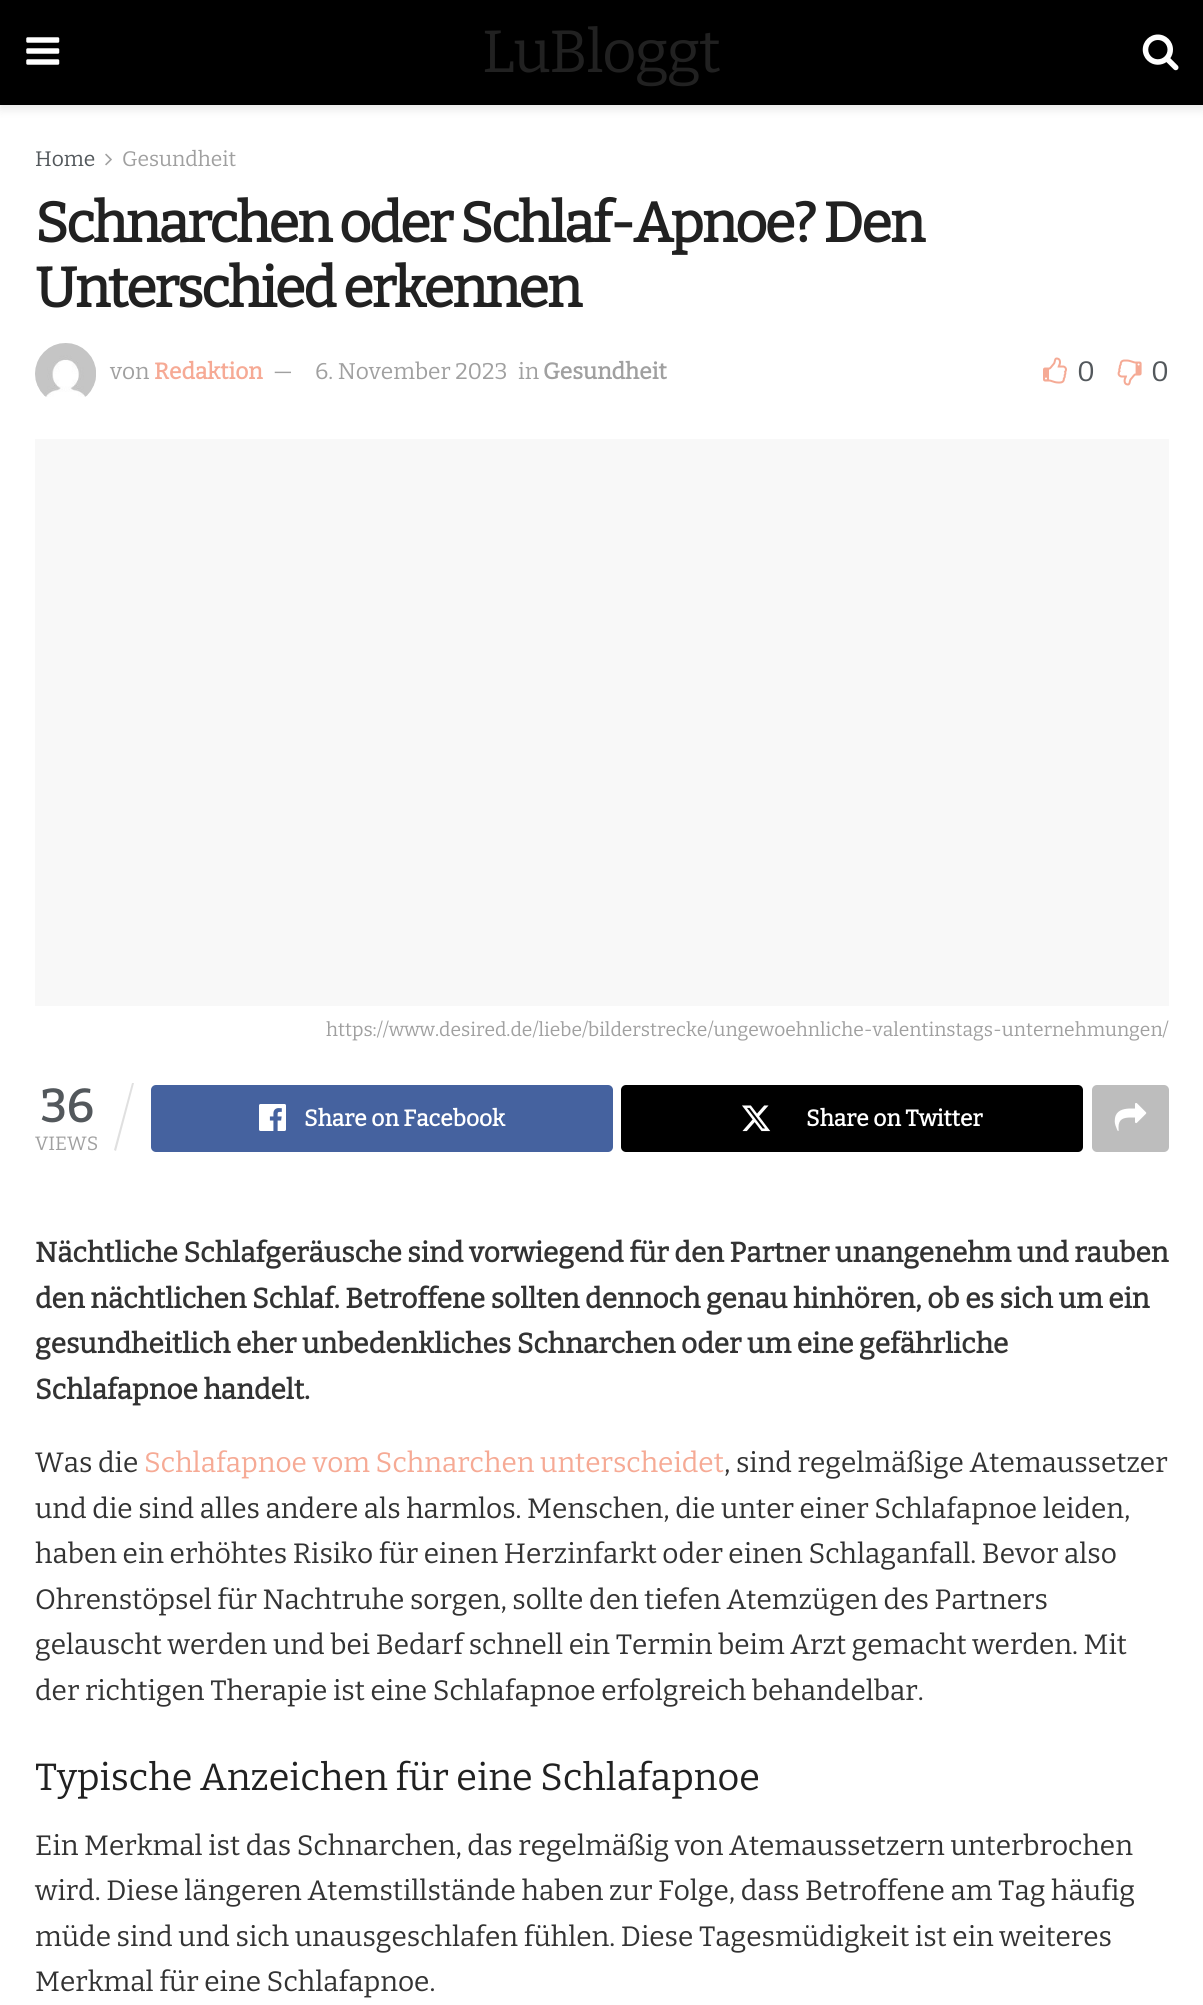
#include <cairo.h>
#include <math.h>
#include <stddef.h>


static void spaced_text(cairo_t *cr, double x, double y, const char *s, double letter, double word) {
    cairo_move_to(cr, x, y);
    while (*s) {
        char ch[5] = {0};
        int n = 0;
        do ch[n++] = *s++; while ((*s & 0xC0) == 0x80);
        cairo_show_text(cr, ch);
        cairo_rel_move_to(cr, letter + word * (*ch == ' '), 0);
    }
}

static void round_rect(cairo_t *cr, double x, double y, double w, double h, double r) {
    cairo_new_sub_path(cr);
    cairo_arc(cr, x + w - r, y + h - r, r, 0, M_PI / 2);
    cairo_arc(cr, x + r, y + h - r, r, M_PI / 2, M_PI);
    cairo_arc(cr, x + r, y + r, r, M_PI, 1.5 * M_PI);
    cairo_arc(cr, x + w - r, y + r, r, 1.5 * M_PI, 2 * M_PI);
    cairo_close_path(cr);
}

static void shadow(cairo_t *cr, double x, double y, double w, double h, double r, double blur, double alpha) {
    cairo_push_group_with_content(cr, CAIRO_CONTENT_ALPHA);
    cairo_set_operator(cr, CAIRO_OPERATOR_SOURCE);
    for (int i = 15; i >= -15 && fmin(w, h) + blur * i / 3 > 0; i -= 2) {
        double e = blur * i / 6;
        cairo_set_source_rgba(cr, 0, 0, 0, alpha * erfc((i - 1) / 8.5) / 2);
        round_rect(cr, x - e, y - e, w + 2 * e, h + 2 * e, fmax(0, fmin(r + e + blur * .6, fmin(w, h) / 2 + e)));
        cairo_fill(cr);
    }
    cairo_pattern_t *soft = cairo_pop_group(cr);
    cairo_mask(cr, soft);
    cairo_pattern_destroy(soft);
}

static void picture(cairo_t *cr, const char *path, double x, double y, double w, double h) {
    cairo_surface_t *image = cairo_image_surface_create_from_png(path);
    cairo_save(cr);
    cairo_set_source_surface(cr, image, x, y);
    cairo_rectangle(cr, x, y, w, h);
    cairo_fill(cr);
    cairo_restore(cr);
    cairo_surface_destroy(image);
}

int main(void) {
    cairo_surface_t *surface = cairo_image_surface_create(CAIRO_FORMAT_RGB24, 1203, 2005);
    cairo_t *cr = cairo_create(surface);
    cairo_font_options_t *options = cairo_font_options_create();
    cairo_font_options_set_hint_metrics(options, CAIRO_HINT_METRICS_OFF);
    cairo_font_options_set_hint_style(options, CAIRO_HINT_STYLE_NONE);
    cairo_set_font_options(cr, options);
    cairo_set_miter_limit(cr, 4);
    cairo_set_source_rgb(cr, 1, 1, 1);
    cairo_paint(cr);
    cairo_set_source_rgb(cr, 0, 0, 0);
    shadow(cr, 0, 4, 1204, 105, 0, 5, 0.1);
    cairo_set_source_rgb(cr, 0, 0, 0);
    cairo_rectangle(cr, 0, 0, 1203, 105);
    cairo_fill(cr);
    picture(cr, "img1.png", 26, 37, 34, 28);
    cairo_select_font_face(cr, "Bitter Thin", CAIRO_FONT_SLANT_NORMAL, CAIRO_FONT_WEIGHT_NORMAL);
    cairo_set_font_size(cr, 59.5);
    cairo_set_source_rgb(cr, 0.129, 0.129, 0.129);
    spaced_text(cr, 482, 72, "LuBloggt", -1.25, 0);
    picture(cr, "img2.png", 1142, 34, 37, 37);
    cairo_set_font_size(cr, 21);
    cairo_set_source_rgb(cr, 0.325, 0.345, 0.361);
    cairo_move_to(cr, 35, 166);
    cairo_show_text(cr, "Home");
    picture(cr, "img3.png", 105, 153, 7, 13);
    cairo_set_source_rgb(cr, 0.627, 0.627, 0.627);
    cairo_move_to(cr, 122, 166);
    cairo_show_text(cr, "Gesundheit");
    cairo_select_font_face(cr, "Bitter", CAIRO_FONT_SLANT_NORMAL, CAIRO_FONT_WEIGHT_BOLD);
    cairo_set_font_size(cr, 56);
    cairo_set_source_rgb(cr, 0.129, 0.129, 0.129);
    spaced_text(cr, 35, 242, "Schnarchen oder Schlaf-Apnoe? Den", -2.25, 0);
    spaced_text(cr, 35, 307, "Unterschied erkennen", -2.25, 0);
    picture(cr, "img4.png", 35, 343, 61, 54);
    cairo_select_font_face(cr, "Bitter Thin", CAIRO_FONT_SLANT_NORMAL, CAIRO_FONT_WEIGHT_NORMAL);
    cairo_set_font_size(cr, 22.75);
    cairo_set_source_rgb(cr, 0.627, 0.627, 0.627);
    cairo_move_to(cr, 110, 379);
    cairo_show_text(cr, "von");
    cairo_select_font_face(cr, "Bitter", CAIRO_FONT_SLANT_NORMAL, CAIRO_FONT_WEIGHT_BOLD);
    cairo_set_source_rgb(cr, 0.961, 0.667, 0.584);
    cairo_move_to(cr, 154, 379);
    cairo_show_text(cr, "Redaktion");
    cairo_select_font_face(cr, "Bitter Thin", CAIRO_FONT_SLANT_NORMAL, CAIRO_FONT_WEIGHT_NORMAL);
    cairo_set_source_rgb(cr, 0.627, 0.627, 0.627);
    cairo_move_to(cr, 273, 379);
    cairo_show_text(cr, "—");
    cairo_move_to(cr, 315, 379);
    cairo_show_text(cr, "6. November 2023");
    cairo_move_to(cr, 518, 379);
    cairo_show_text(cr, "in");
    cairo_select_font_face(cr, "Bitter", CAIRO_FONT_SLANT_NORMAL, CAIRO_FONT_WEIGHT_BOLD);
    cairo_move_to(cr, 543, 379);
    cairo_show_text(cr, "Gesundheit");
    picture(cr, "img5.png", 1043, 357, 24, 27);
    cairo_select_font_face(cr, "Bitter Thin", CAIRO_FONT_SLANT_NORMAL, CAIRO_FONT_WEIGHT_NORMAL);
    cairo_set_font_size(cr, 28);
    cairo_set_source_rgb(cr, 0.325, 0.345, 0.361);
    cairo_move_to(cr, 1077, 381);
    cairo_show_text(cr, "0");
    picture(cr, "img6.png", 1117, 359, 25, 27);
    cairo_move_to(cr, 1151, 381);
    cairo_show_text(cr, "0");
    cairo_set_source_rgb(cr, 0.969, 0.969, 0.969);
    cairo_rectangle(cr, 35, 439, 1134, 567);
    cairo_fill(cr);
    cairo_set_font_size(cr, 19.25);
    cairo_set_source_rgb(cr, 0.627, 0.627, 0.627);
    cairo_move_to(cr, 326, 1036);
    cairo_show_text(cr, "https://www.desired.de/liebe/bilderstrecke/ungewoehnliche-valentinstags-unternehmungen/");
    cairo_select_font_face(cr, "Bitter", CAIRO_FONT_SLANT_NORMAL, CAIRO_FONT_WEIGHT_BOLD);
    cairo_set_font_size(cr, 46);
    cairo_set_source_rgb(cr, 0.325, 0.345, 0.361);
    cairo_move_to(cr, 40, 1122);
    cairo_show_text(cr, "36");
    cairo_set_source_rgb(cr, 0.878, 0.878, 0.878);
    cairo_new_path(cr);
    cairo_move_to(cr, 132, 1083);
    cairo_line_to(cr, 134, 1083);
    cairo_line_to(cr, 116, 1151);
    cairo_line_to(cr, 114, 1150);
    cairo_close_path(cr);
    cairo_fill(cr);
    cairo_select_font_face(cr, "Bitter Thin", CAIRO_FONT_SLANT_NORMAL, CAIRO_FONT_WEIGHT_NORMAL);
    cairo_set_font_size(cr, 19.25);
    cairo_set_source_rgb(cr, 0.627, 0.627, 0.627);
    cairo_move_to(cr, 35, 1150);
    cairo_show_text(cr, "VIEWS");
    cairo_set_source_rgb(cr, 0.271, 0.384, 0.624);
    round_rect(cr, 151, 1085, 462, 67, 5);
    cairo_fill(cr);
    picture(cr, "img7.png", 259, 1104, 27, 27);
    cairo_select_font_face(cr, "Bitter", CAIRO_FONT_SLANT_NORMAL, CAIRO_FONT_WEIGHT_BOLD);
    cairo_set_font_size(cr, 22.75);
    cairo_set_source_rgb(cr, 1, 1, 1);
    cairo_move_to(cr, 304, 1126);
    cairo_show_text(cr, "Share on Facebook");
    cairo_set_source_rgb(cr, 0, 0, 0);
    round_rect(cr, 621, 1085, 462, 67, 5);
    cairo_fill(cr);
    picture(cr, "img8.png", 742, 1105, 29, 27);
    cairo_set_source_rgb(cr, 1, 1, 1);
    cairo_move_to(cr, 806, 1126);
    cairo_show_text(cr, "Share on Twitter");
    cairo_set_source_rgb(cr, 0.741, 0.741, 0.741);
    round_rect(cr, 1092, 1085, 77, 67, 5);
    cairo_fill(cr);
    picture(cr, "img9.png", 1114, 1103, 33, 28);
    cairo_set_font_size(cr, 28);
    cairo_set_source_rgb(cr, 0.2, 0.2, 0.2);
    cairo_move_to(cr, 35, 1262);
    cairo_show_text(cr, "Nächtliche Schlafgeräusche sind vorwiegend für den Partner unangenehm und rauben");
    cairo_move_to(cr, 35, 1308);
    cairo_show_text(cr, "den nächtlichen Schlaf. Betroffene sollten dennoch genau hinhören, ob es sich um ein");
    cairo_move_to(cr, 35, 1353);
    cairo_show_text(cr, "gesundheitlich eher unbedenkliches Schnarchen oder um eine gefährliche");
    cairo_move_to(cr, 35, 1399);
    cairo_show_text(cr, "Schlafapnoe handelt.");
    cairo_select_font_face(cr, "Bitter Thin", CAIRO_FONT_SLANT_NORMAL, CAIRO_FONT_WEIGHT_NORMAL);
    cairo_move_to(cr, 35, 1472);
    cairo_show_text(cr, "Was die");
    cairo_set_source_rgb(cr, 0.961, 0.667, 0.584);
    cairo_move_to(cr, 144, 1472);
    cairo_show_text(cr, "Schlafapnoe vom Schnarchen unterscheidet");
    cairo_set_source_rgb(cr, 0.2, 0.2, 0.2);
    cairo_move_to(cr, 724, 1472);
    cairo_show_text(cr, ", sind regelmäßige Atemaussetzer");
    cairo_move_to(cr, 35, 1518);
    cairo_show_text(cr, "und die sind alles andere als harmlos. Menschen, die unter einer Schlafapnoe leiden,");
    cairo_move_to(cr, 35, 1563);
    cairo_show_text(cr, "haben ein erhöhtes Risiko für einen Herzinfarkt oder einen Schlaganfall. Bevor also");
    cairo_move_to(cr, 35, 1609);
    cairo_show_text(cr, "Ohrenstöpsel für Nachtruhe sorgen, sollte den tiefen Atemzügen des Partners");
    cairo_move_to(cr, 35, 1654);
    cairo_show_text(cr, "gelauscht werden und bei Bedarf schnell ein Termin beim Arzt gemacht werden. Mit");
    cairo_move_to(cr, 35, 1700);
    cairo_show_text(cr, "der richtigen Therapie ist eine Schlafapnoe erfolgreich behandelbar.");
    cairo_set_font_size(cr, 37.75);
    cairo_set_source_rgb(cr, 0.129, 0.129, 0.129);
    cairo_move_to(cr, 35, 1790);
    cairo_show_text(cr, "Typische Anzeichen für eine Schlafapnoe");
    cairo_set_font_size(cr, 28);
    cairo_set_source_rgb(cr, 0.2, 0.2, 0.2);
    cairo_move_to(cr, 35, 1855);
    cairo_show_text(cr, "Ein Merkmal ist das Schnarchen, das regelmäßig von Atemaussetzern unterbrochen");
    cairo_move_to(cr, 35, 1900);
    cairo_show_text(cr, "wird. Diese längeren Atemstillstände haben zur Folge, dass Betroffene am Tag häufig");
    cairo_move_to(cr, 35, 1946);
    cairo_show_text(cr, "müde sind und sich unausgeschlafen fühlen. Diese Tagesmüdigkeit ist ein weiteres");
    cairo_move_to(cr, 35, 1991);
    cairo_show_text(cr, "Merkmal für eine Schlafapnoe.");
    cairo_surface_write_to_png(surface, "page.png");
    cairo_font_options_destroy(options);
    cairo_destroy(cr);
    cairo_surface_destroy(surface);
    return 0;
}
